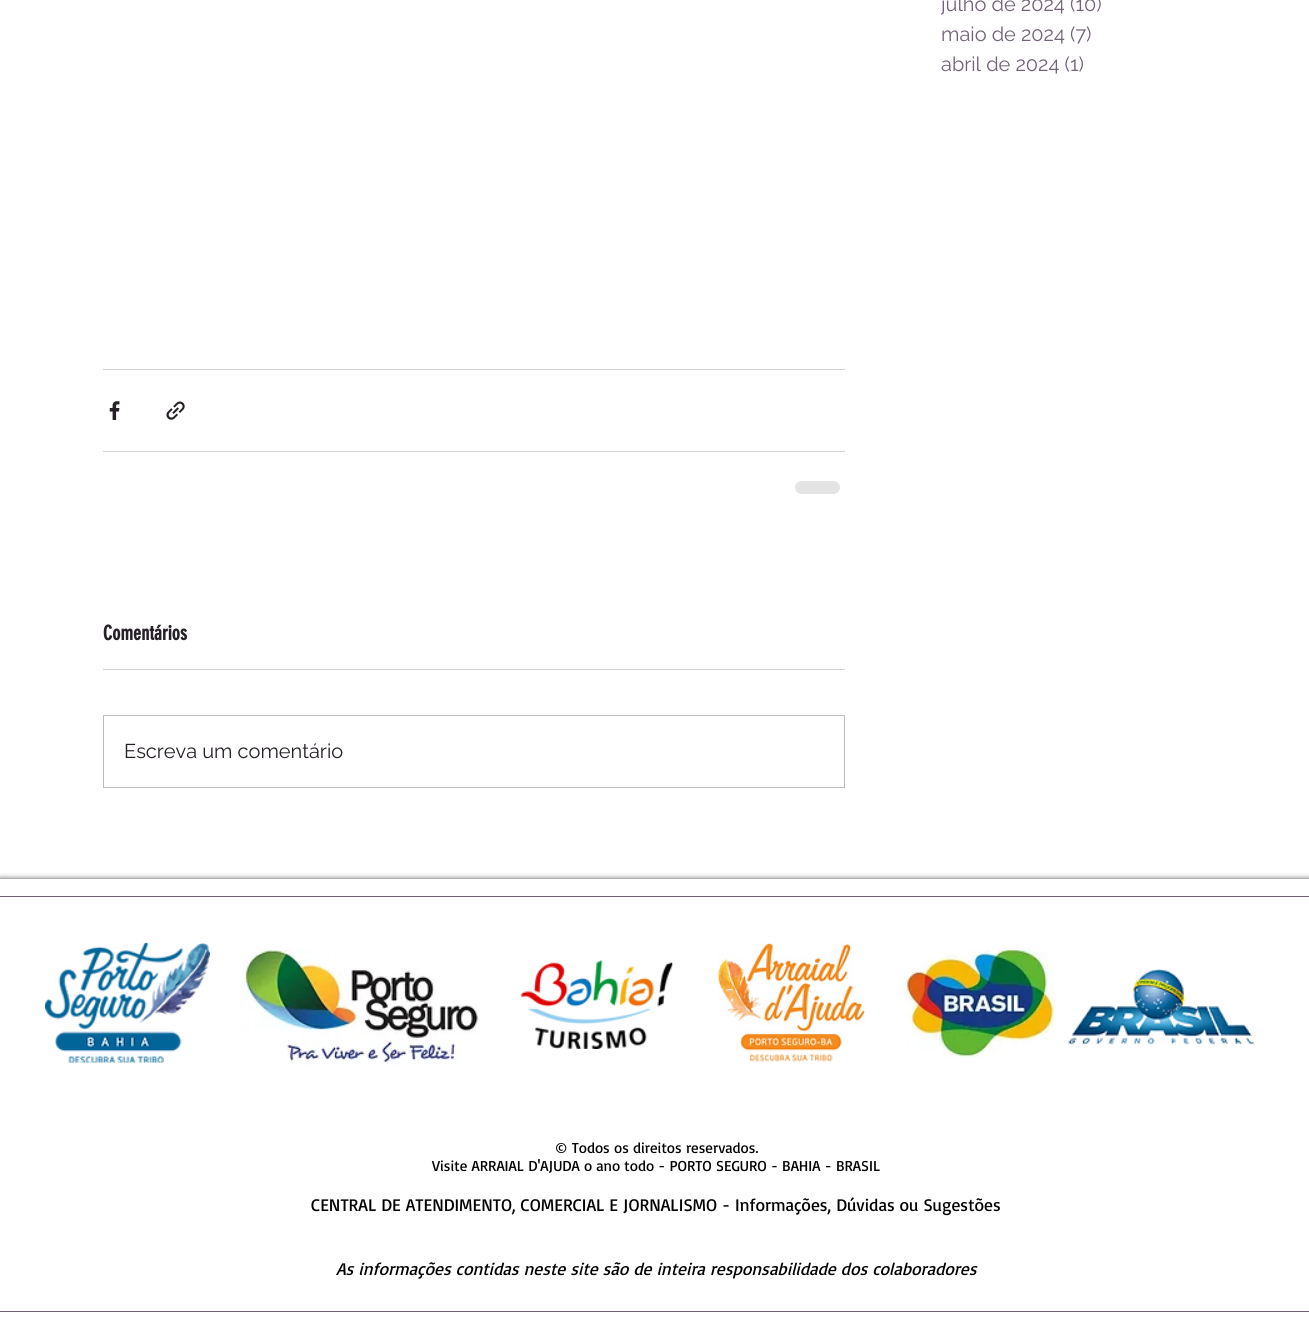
#include <cairo.h>
#include <math.h>
#include <stddef.h>


static void round_rect(cairo_t *cr, double x, double y, double w, double h, double r) {
    cairo_new_sub_path(cr);
    cairo_arc(cr, x + w - r, y + h - r, r, 0, M_PI / 2);
    cairo_arc(cr, x + r, y + h - r, r, M_PI / 2, M_PI);
    cairo_arc(cr, x + r, y + r, r, M_PI, 1.5 * M_PI);
    cairo_arc(cr, x + w - r, y + r, r, 1.5 * M_PI, 2 * M_PI);
    cairo_close_path(cr);
}

static void shadow(cairo_t *cr, double x, double y, double w, double h, double r, double blur, double alpha) {
    cairo_push_group_with_content(cr, CAIRO_CONTENT_ALPHA);
    cairo_set_operator(cr, CAIRO_OPERATOR_SOURCE);
    for (int i = 15; i >= -15 && fmin(w, h) + blur * i / 3 > 0; i -= 2) {
        double e = blur * i / 6;
        cairo_set_source_rgba(cr, 0, 0, 0, alpha * erfc((i - 1) / 8.5) / 2);
        round_rect(cr, x - e, y - e, w + 2 * e, h + 2 * e, fmax(0, fmin(r + e + blur * .6, fmin(w, h) / 2 + e)));
        cairo_fill(cr);
    }
    cairo_pattern_t *soft = cairo_pop_group(cr);
    cairo_mask(cr, soft);
    cairo_pattern_destroy(soft);
}

static void picture(cairo_t *cr, const char *path, double x, double y, double w, double h) {
    cairo_surface_t *image = cairo_image_surface_create_from_png(path);
    cairo_save(cr);
    cairo_set_source_surface(cr, image, x, y);
    cairo_rectangle(cr, x, y, w, h);
    cairo_fill(cr);
    cairo_restore(cr);
    cairo_surface_destroy(image);
}

int main(void) {
    cairo_surface_t *surface = cairo_image_surface_create(CAIRO_FORMAT_RGB24, 1309, 1329);
    cairo_t *cr = cairo_create(surface);
    cairo_font_options_t *options = cairo_font_options_create();
    cairo_font_options_set_hint_metrics(options, CAIRO_HINT_METRICS_OFF);
    cairo_font_options_set_hint_style(options, CAIRO_HINT_STYLE_NONE);
    cairo_set_font_options(cr, options);
    cairo_set_miter_limit(cr, 4);
    cairo_set_source_rgb(cr, 1, 1, 1);
    cairo_paint(cr);
    cairo_save(cr);
    cairo_rectangle(cr, 941, 0, 160, 20);
    cairo_clip(cr);
    cairo_select_font_face(cr, "Raleway", CAIRO_FONT_SLANT_NORMAL, CAIRO_FONT_WEIGHT_NORMAL);
    cairo_set_font_size(cr, 20);
    cairo_set_source_rgb(cr, 0.447, 0.384, 0.467);
    cairo_move_to(cr, 941, 11);
    cairo_show_text(cr, "julho de 2024");
    cairo_restore(cr);
    cairo_select_font_face(cr, "Raleway", CAIRO_FONT_SLANT_NORMAL, CAIRO_FONT_WEIGHT_NORMAL);
    cairo_set_font_size(cr, 20);
    cairo_set_source_rgb(cr, 0.447, 0.384, 0.467);
    cairo_move_to(cr, 1070, 11);
    cairo_show_text(cr, "(10)");
    cairo_move_to(cr, 941, 41);
    cairo_show_text(cr, "maio de 2024 (7)");
    cairo_move_to(cr, 941, 71);
    cairo_show_text(cr, "abril de 2024 (1)");
    cairo_set_source_rgb(cr, 0.831, 0.824, 0.831);
    cairo_rectangle(cr, 103, 369, 742, 1);
    cairo_fill(cr);
    picture(cr, "img1.png", 109, 401, 11, 19);
    picture(cr, "img2.png", 166, 401, 19, 19);
    cairo_rectangle(cr, 103, 451, 742, 1);
    cairo_fill(cr);
    cairo_set_source_rgb(cr, 0.898, 0.894, 0.898);
    round_rect(cr, 795, 481, 45, 13, 6.5);
    cairo_fill(cr);
    cairo_select_font_face(cr, "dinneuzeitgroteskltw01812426", CAIRO_FONT_SLANT_NORMAL, CAIRO_FONT_WEIGHT_BOLD);
    cairo_set_source_rgb(cr, 0.149, 0.125, 0.153);
    cairo_move_to(cr, 103, 640);
    cairo_show_text(cr, "Comentários");
    cairo_set_source_rgb(cr, 0.831, 0.824, 0.831);
    cairo_rectangle(cr, 103, 669, 742, 1);
    cairo_fill(cr);
    cairo_rectangle(cr, 103.5, 715.5, 741, 72);
    cairo_set_source_rgb(cr, 0.745, 0.737, 0.745);
    cairo_set_line_width(cr, 1);
    cairo_stroke(cr);
    cairo_select_font_face(cr, "Raleway", CAIRO_FONT_SLANT_NORMAL, CAIRO_FONT_WEIGHT_NORMAL);
    cairo_set_source_rgb(cr, 0.149, 0.125, 0.153);
    cairo_move_to(cr, 124, 758);
    cairo_show_text(cr, "Escreva um comentário");
    cairo_save(cr);
    cairo_rectangle(cr, 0, 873, 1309, 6);
    cairo_clip(cr);
    cairo_set_source_rgb(cr, 0, 0, 0);
    shadow(cr, 0, 879, 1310, 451, 0, 3, 0.7);
    cairo_restore(cr);
    cairo_set_source_rgb(cr, 0.447, 0.384, 0.467);
    cairo_rectangle(cr, 0, 896, 1309, 1);
    cairo_fill(cr);
    cairo_rectangle(cr, 0, 1311, 1309, 1);
    cairo_fill(cr);
    picture(cr, "img3.png", 45, 942, 165, 121);
    picture(cr, "img4.png", 242, 949, 238, 117);
    picture(cr, "img5.png", 521, 960, 152, 89);
    picture(cr, "img6.png", 717, 942, 149, 120);
    picture(cr, "img7.png", 903, 950, 151, 108);
    picture(cr, "img8.png", 1068, 969, 187, 76);
    cairo_select_font_face(cr, "Basic", CAIRO_FONT_SLANT_NORMAL, CAIRO_FONT_WEIGHT_NORMAL);
    cairo_set_font_size(cr, 15);
    cairo_set_source_rgb(cr, 0, 0, 0);
    cairo_move_to(cr, 555, 1153);
    cairo_show_text(cr, "© Todos os direitos reservados.");
    cairo_move_to(cr, 432, 1171);
    cairo_show_text(cr, "Visite ARRAIAL D'AJUDA o ano todo - PORTO SEGURO - BAHIA - BRASIL");
    cairo_set_font_size(cr, 17.5);
    cairo_move_to(cr, 311, 1211);
    cairo_show_text(cr, "CENTRAL DE ATENDIMENTO, COMERCIAL E JORNALISMO - Informações, Dúvidas ou Sugestões");
    cairo_select_font_face(cr, "Basic", CAIRO_FONT_SLANT_ITALIC, CAIRO_FONT_WEIGHT_NORMAL);
    cairo_move_to(cr, 336, 1275);
    cairo_show_text(cr, "As informações contidas neste site são de inteira responsabilidade dos colaboradores");
    cairo_surface_write_to_png(surface, "page.png");
    cairo_font_options_destroy(options);
    cairo_destroy(cr);
    cairo_surface_destroy(surface);
    return 0;
}
